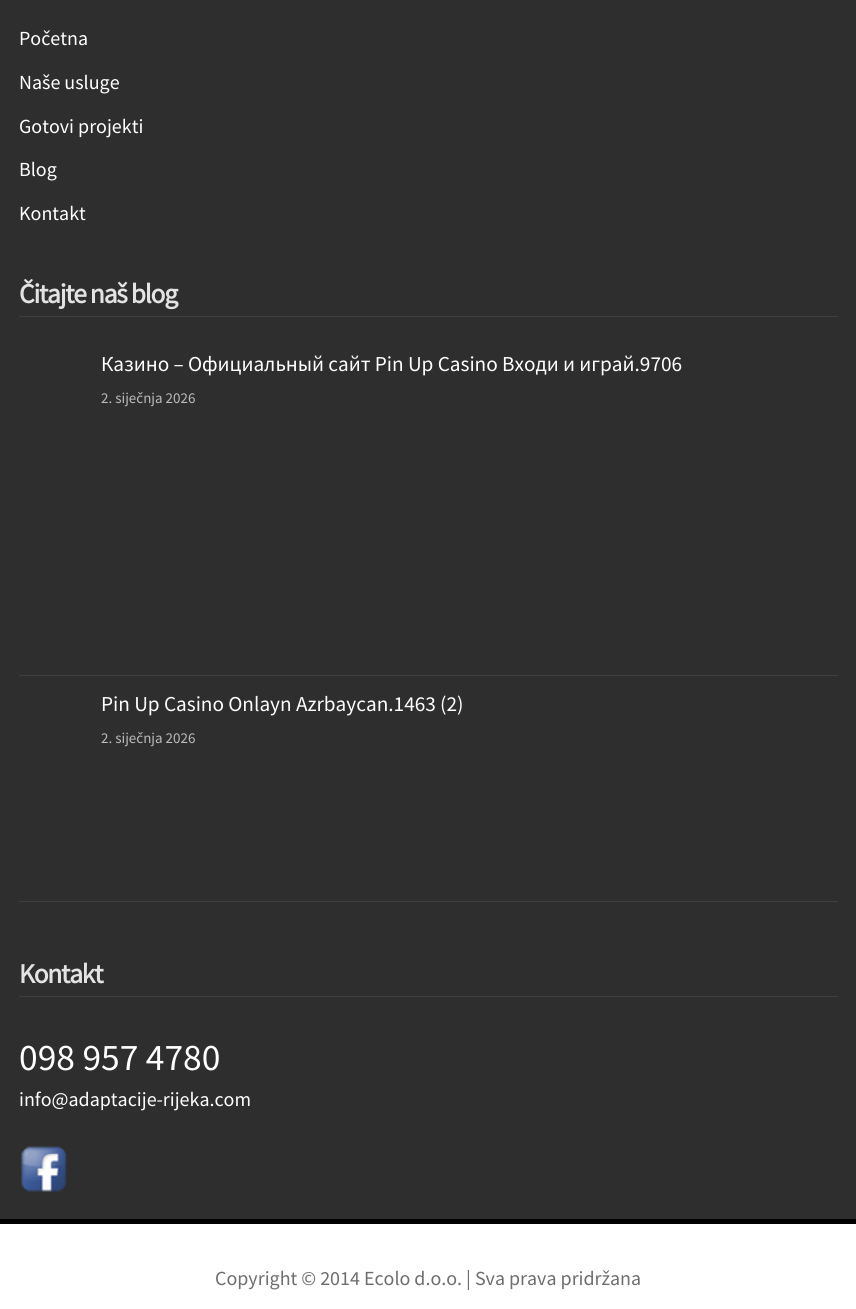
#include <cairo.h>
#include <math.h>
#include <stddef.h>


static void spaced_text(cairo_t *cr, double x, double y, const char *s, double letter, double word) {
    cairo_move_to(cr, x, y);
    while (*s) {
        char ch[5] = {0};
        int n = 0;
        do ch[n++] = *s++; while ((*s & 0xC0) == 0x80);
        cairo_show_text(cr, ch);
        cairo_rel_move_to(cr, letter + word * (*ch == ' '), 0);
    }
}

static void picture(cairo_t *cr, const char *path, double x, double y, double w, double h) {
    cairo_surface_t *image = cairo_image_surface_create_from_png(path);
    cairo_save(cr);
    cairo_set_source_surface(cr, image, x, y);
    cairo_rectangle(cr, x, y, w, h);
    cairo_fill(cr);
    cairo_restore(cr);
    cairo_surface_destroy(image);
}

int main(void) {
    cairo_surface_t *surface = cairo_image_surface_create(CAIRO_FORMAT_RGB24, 856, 1309);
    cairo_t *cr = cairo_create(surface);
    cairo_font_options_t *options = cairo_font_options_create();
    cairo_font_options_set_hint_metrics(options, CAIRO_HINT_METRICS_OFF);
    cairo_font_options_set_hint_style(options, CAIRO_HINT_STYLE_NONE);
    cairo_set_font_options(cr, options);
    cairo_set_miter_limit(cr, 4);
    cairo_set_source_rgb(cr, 1, 1, 1);
    cairo_paint(cr);
    cairo_set_source_rgb(cr, 0.18, 0.18, 0.18);
    cairo_rectangle(cr, 0, 0, 856, 1219);
    cairo_fill(cr);
    cairo_set_source_rgb(cr, 0, 0, 0);
    cairo_rectangle(cr, 0, 1219, 856, 5);
    cairo_fill(cr);
    cairo_select_font_face(cr, "Source Sans Pro", CAIRO_FONT_SLANT_NORMAL, CAIRO_FONT_WEIGHT_NORMAL);
    cairo_set_font_size(cr, 20);
    cairo_set_source_rgb(cr, 1, 1, 1);
    cairo_move_to(cr, 19, 45);
    cairo_show_text(cr, "Početna");
    cairo_move_to(cr, 19, 89);
    cairo_show_text(cr, "Naše usluge");
    cairo_move_to(cr, 19, 133);
    cairo_show_text(cr, "Gotovi projekti");
    cairo_move_to(cr, 19, 176);
    cairo_show_text(cr, "Blog");
    cairo_move_to(cr, 19, 220);
    cairo_show_text(cr, "Kontakt");
    cairo_set_source_rgb(cr, 0.247, 0.247, 0.247);
    cairo_rectangle(cr, 19, 316, 819, 1);
    cairo_fill(cr);
    cairo_select_font_face(cr, "Source Sans Pro", CAIRO_FONT_SLANT_NORMAL, CAIRO_FONT_WEIGHT_BOLD);
    cairo_set_font_size(cr, 27.5);
    cairo_set_source_rgb(cr, 0.89, 0.89, 0.89);
    spaced_text(cr, 19, 303, "Čitajte naš blog", -1.25, 0);
    cairo_set_source_rgb(cr, 0.247, 0.247, 0.247);
    cairo_rectangle(cr, 19, 675, 819, 1);
    cairo_fill(cr);
    cairo_select_font_face(cr, "Source Sans Pro", CAIRO_FONT_SLANT_NORMAL, CAIRO_FONT_WEIGHT_NORMAL);
    cairo_set_font_size(cr, 21.25);
    cairo_set_source_rgb(cr, 1, 1, 1);
    cairo_move_to(cr, 101, 371);
    cairo_show_text(cr, "Казино – Официальный сайт Pin Up Casino Входи и играй.9706");
    cairo_set_font_size(cr, 15);
    cairo_set_source_rgb(cr, 0.733, 0.733, 0.733);
    cairo_move_to(cr, 101, 403);
    cairo_show_text(cr, "2. siječnja 2026");
    cairo_set_source_rgb(cr, 0.247, 0.247, 0.247);
    cairo_rectangle(cr, 19, 901, 819, 1);
    cairo_fill(cr);
    cairo_set_font_size(cr, 21.25);
    cairo_set_source_rgb(cr, 1, 1, 1);
    cairo_move_to(cr, 101, 711);
    cairo_show_text(cr, "Pin Up Casino Onlayn Azrbaycan.1463 (2)");
    cairo_set_font_size(cr, 15);
    cairo_set_source_rgb(cr, 0.733, 0.733, 0.733);
    cairo_move_to(cr, 101, 743);
    cairo_show_text(cr, "2. siječnja 2026");
    cairo_set_source_rgb(cr, 0.247, 0.247, 0.247);
    cairo_rectangle(cr, 19, 996, 819, 1);
    cairo_fill(cr);
    cairo_select_font_face(cr, "Source Sans Pro", CAIRO_FONT_SLANT_NORMAL, CAIRO_FONT_WEIGHT_BOLD);
    cairo_set_font_size(cr, 27.5);
    cairo_set_source_rgb(cr, 0.89, 0.89, 0.89);
    spaced_text(cr, 19, 983, "Kontakt", -1.25, 0);
    cairo_select_font_face(cr, "Source Sans Pro", CAIRO_FONT_SLANT_NORMAL, CAIRO_FONT_WEIGHT_NORMAL);
    cairo_set_font_size(cr, 37.5);
    cairo_set_source_rgb(cr, 1, 1, 1);
    cairo_move_to(cr, 19, 1070);
    cairo_show_text(cr, "098 957 4780");
    cairo_set_font_size(cr, 20);
    cairo_move_to(cr, 19, 1106);
    cairo_show_text(cr, "info@adaptacije-rijeka.com");
    picture(cr, "img1.png", 21, 1146, 46, 46);
    cairo_set_source_rgb(cr, 0.431, 0.431, 0.431);
    cairo_move_to(cr, 215, 1285);
    cairo_show_text(cr, "Copyright © 2014 Ecolo d.o.o. | Sva prava pridržana");
    cairo_surface_write_to_png(surface, "page.png");
    cairo_font_options_destroy(options);
    cairo_destroy(cr);
    cairo_surface_destroy(surface);
    return 0;
}
